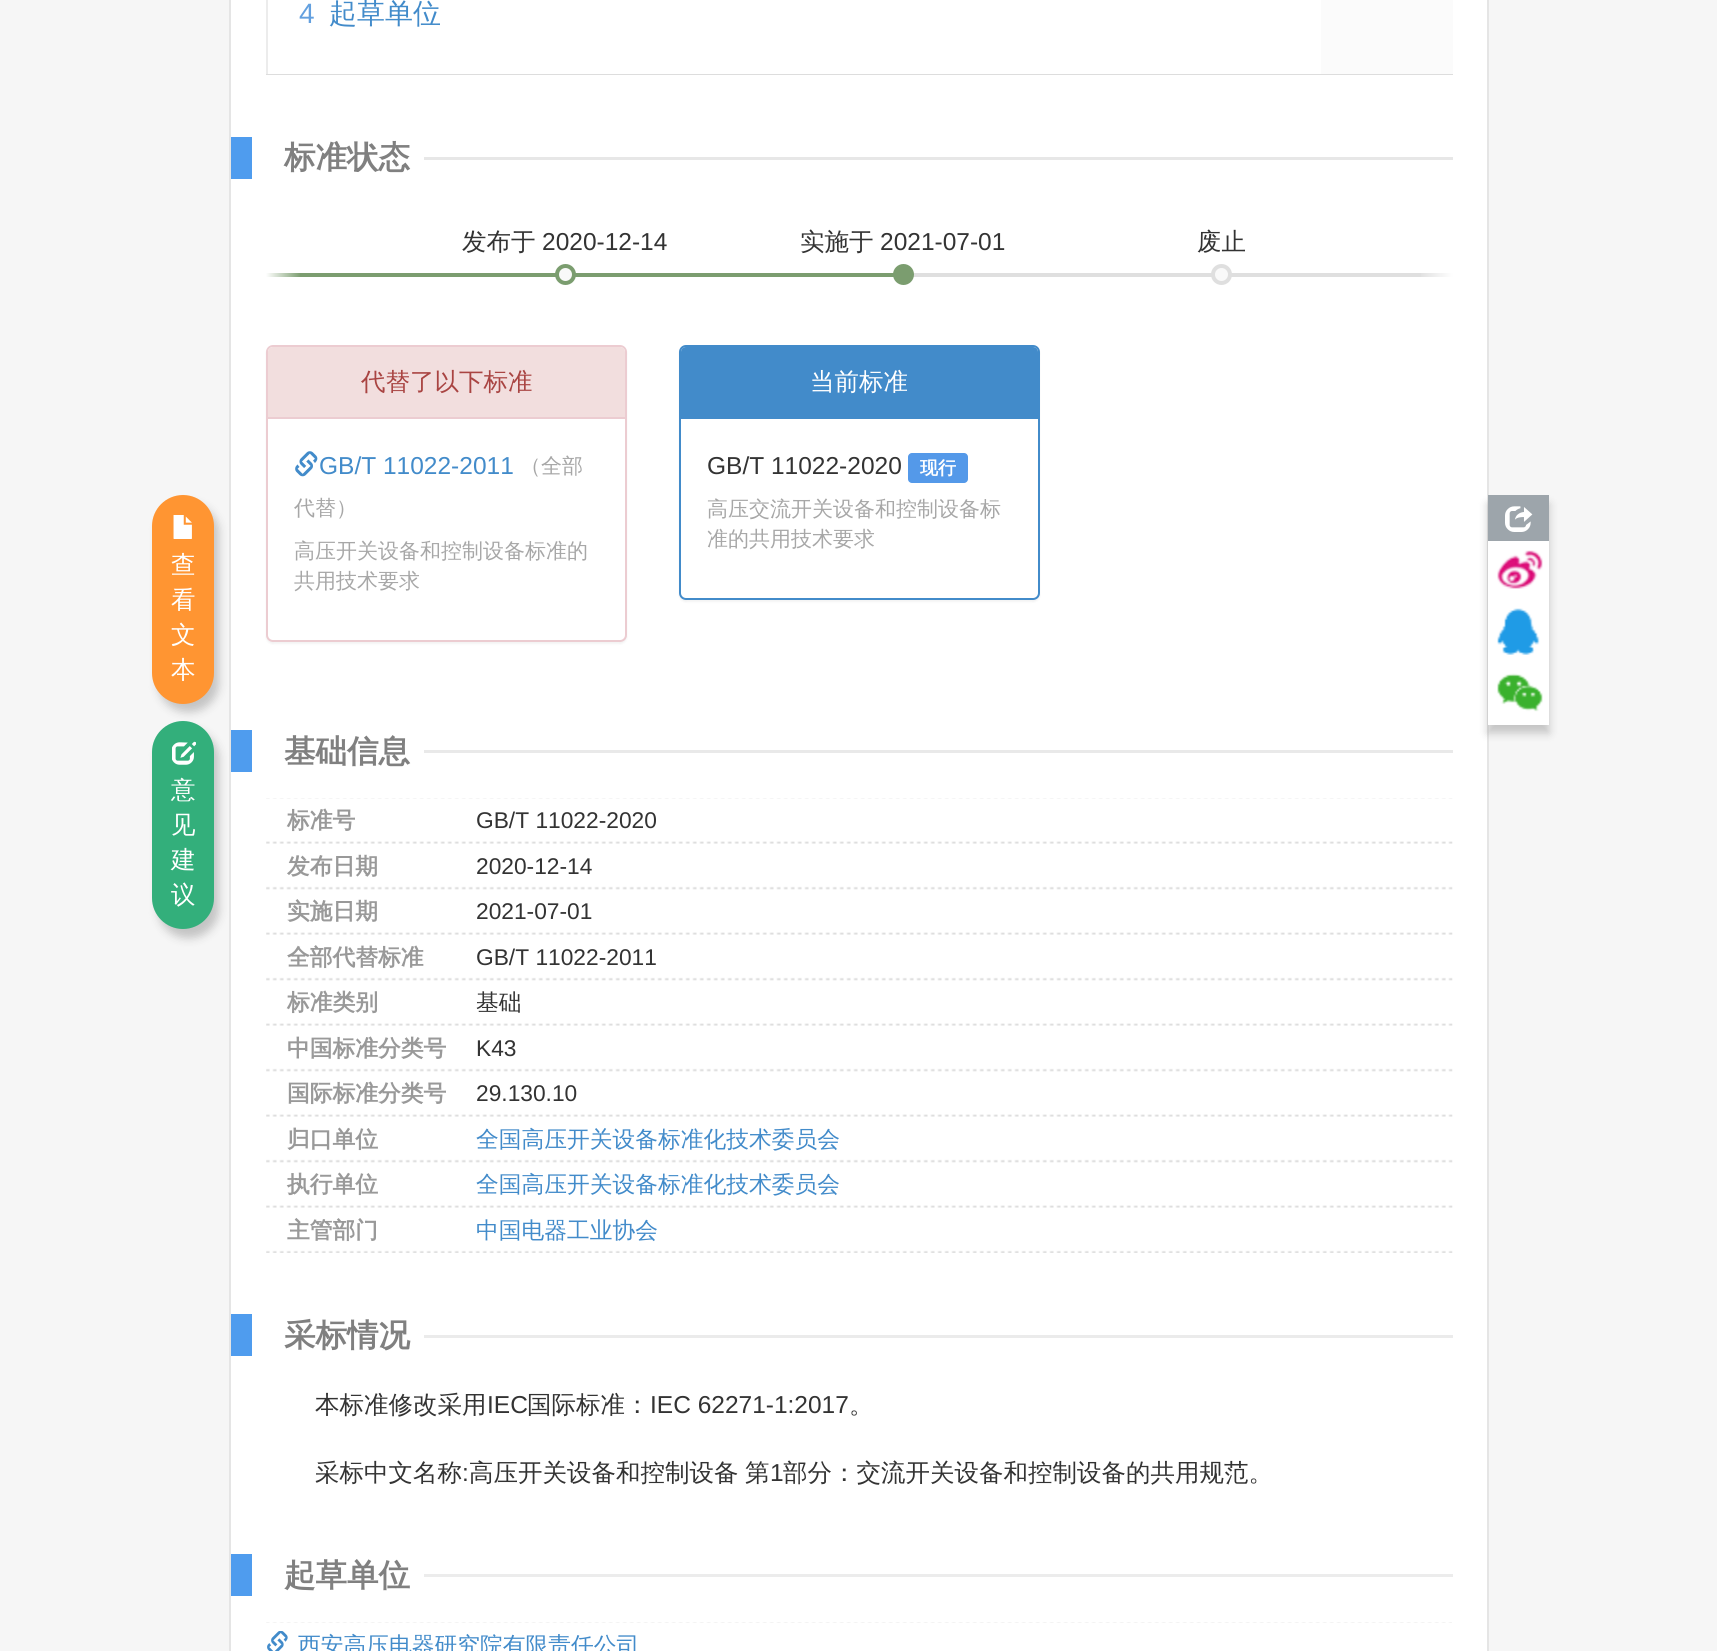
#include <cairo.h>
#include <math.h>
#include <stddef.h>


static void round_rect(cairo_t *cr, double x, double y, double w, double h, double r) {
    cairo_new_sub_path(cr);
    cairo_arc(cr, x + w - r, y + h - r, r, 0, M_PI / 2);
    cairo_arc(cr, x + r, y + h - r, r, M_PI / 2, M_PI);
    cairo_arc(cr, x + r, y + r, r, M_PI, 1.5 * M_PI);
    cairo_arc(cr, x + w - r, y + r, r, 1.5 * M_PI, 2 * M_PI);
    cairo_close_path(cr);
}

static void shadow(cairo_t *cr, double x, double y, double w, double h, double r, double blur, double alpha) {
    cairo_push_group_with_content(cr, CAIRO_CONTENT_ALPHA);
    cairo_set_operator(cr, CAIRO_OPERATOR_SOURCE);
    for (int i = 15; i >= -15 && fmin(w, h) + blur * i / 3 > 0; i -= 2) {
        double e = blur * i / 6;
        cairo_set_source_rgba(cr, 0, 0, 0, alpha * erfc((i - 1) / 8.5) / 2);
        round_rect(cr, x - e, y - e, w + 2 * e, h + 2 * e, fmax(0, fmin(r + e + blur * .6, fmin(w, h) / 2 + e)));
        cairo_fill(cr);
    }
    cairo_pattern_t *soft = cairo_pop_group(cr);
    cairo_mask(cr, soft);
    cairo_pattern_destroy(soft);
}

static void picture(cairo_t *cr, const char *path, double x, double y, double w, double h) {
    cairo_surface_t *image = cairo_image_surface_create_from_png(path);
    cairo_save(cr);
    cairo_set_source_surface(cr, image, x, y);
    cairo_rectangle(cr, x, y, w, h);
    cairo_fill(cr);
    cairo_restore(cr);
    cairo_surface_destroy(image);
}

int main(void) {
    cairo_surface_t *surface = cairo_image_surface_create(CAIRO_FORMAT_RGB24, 1717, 1651);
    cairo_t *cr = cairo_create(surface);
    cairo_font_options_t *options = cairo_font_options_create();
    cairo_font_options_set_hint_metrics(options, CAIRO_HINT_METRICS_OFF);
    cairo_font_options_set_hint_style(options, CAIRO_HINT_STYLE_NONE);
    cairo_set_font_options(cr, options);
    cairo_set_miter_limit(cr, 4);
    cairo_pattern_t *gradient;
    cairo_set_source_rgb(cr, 0.961, 0.961, 0.961);
    cairo_paint(cr);
    cairo_set_source_rgb(cr, 1, 1, 1);
    cairo_rectangle(cr, 230, -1, 1258, 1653);
    cairo_fill_preserve(cr);
    cairo_set_source_rgb(cr, 0.898, 0.898, 0.898);
    cairo_stroke(cr);
    cairo_set_source_rgb(cr, 0.573, 0.573, 0.573);
    shadow(cr, 158, 504, 61, 208, 30.5, 4.5, 0.5);
    cairo_set_source_rgb(cr, 1, 0.584, 0.196);
    round_rect(cr, 152, 495, 62, 209, 31);
    cairo_fill(cr);
    picture(cr, "img1.png", 173, 515, 19, 24);
    cairo_select_font_face(cr, "WenQuanYi Zen Hei Medium", CAIRO_FONT_SLANT_NORMAL, CAIRO_FONT_WEIGHT_NORMAL);
    cairo_set_font_size(cr, 24.5);
    cairo_set_source_rgb(cr, 1, 1, 1);
    cairo_move_to(cr, 171, 573);
    cairo_show_text(cr, "查");
    cairo_move_to(cr, 171, 608);
    cairo_show_text(cr, "看");
    cairo_move_to(cr, 171, 643);
    cairo_show_text(cr, "文");
    cairo_move_to(cr, 171, 678);
    cairo_show_text(cr, "本");
    cairo_set_source_rgb(cr, 0.31, 0.612, 0.933);
    cairo_rectangle(cr, 231, 730, 21, 42);
    cairo_fill(cr);
    cairo_set_source_rgb(cr, 0.573, 0.573, 0.573);
    shadow(cr, 158, 730, 61, 208, 30.5, 4.5, 0.5);
    cairo_set_source_rgb(cr, 0.2, 0.686, 0.482);
    round_rect(cr, 152, 721, 62, 208, 31);
    cairo_fill(cr);
    picture(cr, "img2.png", 172, 741, 24, 24);
    cairo_set_source_rgb(cr, 1, 1, 1);
    cairo_move_to(cr, 171, 798);
    cairo_show_text(cr, "意");
    cairo_move_to(cr, 171, 833);
    cairo_show_text(cr, "见");
    cairo_move_to(cr, 171, 868);
    cairo_show_text(cr, "建");
    cairo_move_to(cr, 171, 903);
    cairo_show_text(cr, "议");
    cairo_set_source_rgb(cr, 0.984, 0.984, 0.984);
    cairo_rectangle(cr, 1321, 0, 132, 74);
    cairo_fill(cr);
    cairo_set_source_rgb(cr, 0.867, 0.867, 0.867);
    cairo_rectangle(cr, 266, 74, 1187, 1);
    cairo_fill(cr);
    cairo_set_source_rgb(cr, 0.922, 0.922, 0.922);
    cairo_rectangle(cr, 266, 0, 2, 74);
    cairo_fill(cr);
    cairo_select_font_face(cr, "Liberation Sans", CAIRO_FONT_SLANT_NORMAL, CAIRO_FONT_WEIGHT_NORMAL);
    cairo_set_font_size(cr, 28);
    cairo_set_source_rgb(cr, 0.388, 0.627, 0.875);
    cairo_move_to(cr, 299, 23);
    cairo_show_text(cr, "4");
    cairo_select_font_face(cr, "WenQuanYi Zen Hei Medium", CAIRO_FONT_SLANT_NORMAL, CAIRO_FONT_WEIGHT_NORMAL);
    cairo_set_source_rgb(cr, 0.259, 0.545, 0.792);
    cairo_move_to(cr, 329, 23);
    cairo_show_text(cr, "起草单位");
    cairo_set_source_rgb(cr, 0.906, 0.906, 0.906);
    cairo_rectangle(cr, 424, 157, 1029, 3);
    cairo_fill(cr);
    cairo_set_source_rgb(cr, 0.31, 0.612, 0.933);
    cairo_rectangle(cr, 231, 137, 21, 42);
    cairo_fill(cr);
    cairo_select_font_face(cr, "WenQuanYi Zen Hei", CAIRO_FONT_SLANT_NORMAL, CAIRO_FONT_WEIGHT_BOLD);
    cairo_set_font_size(cr, 31.5);
    cairo_set_source_rgb(cr, 0.502, 0.502, 0.502);
    cairo_move_to(cr, 284, 168);
    cairo_show_text(cr, "标准状态");
    cairo_set_source_rgb(cr, 0.875, 0.875, 0.875);
    cairo_rectangle(cr, 913, 273, 540, 4);
    cairo_fill(cr);
    cairo_select_font_face(cr, "WenQuanYi Zen Hei Medium", CAIRO_FONT_SLANT_NORMAL, CAIRO_FONT_WEIGHT_NORMAL);
    cairo_set_font_size(cr, 24.5);
    cairo_set_source_rgb(cr, 0.2, 0.2, 0.2);
    cairo_move_to(cr, 462, 250);
    cairo_show_text(cr, "发布于");
    cairo_select_font_face(cr, "Liberation Sans", CAIRO_FONT_SLANT_NORMAL, CAIRO_FONT_WEIGHT_NORMAL);
    cairo_move_to(cr, 542, 250);
    cairo_show_text(cr, "2020-12-14");
    cairo_set_source_rgb(cr, 0.482, 0.616, 0.435);
    cairo_rectangle(cr, 266, 273, 628, 4);
    cairo_fill(cr);
    cairo_set_source_rgb(cr, 0.973, 0.973, 0.973);
    cairo_arc(cr, 565.5, 274.5, 8.5, 0, 2 * M_PI);
    cairo_fill_preserve(cr);
    cairo_set_source_rgb(cr, 0.482, 0.616, 0.435);
    cairo_set_line_width(cr, 4);
    cairo_stroke(cr);
    cairo_select_font_face(cr, "WenQuanYi Zen Hei Medium", CAIRO_FONT_SLANT_NORMAL, CAIRO_FONT_WEIGHT_NORMAL);
    cairo_set_source_rgb(cr, 0.2, 0.2, 0.2);
    cairo_move_to(cr, 800, 250);
    cairo_show_text(cr, "实施于");
    cairo_select_font_face(cr, "Liberation Sans", CAIRO_FONT_SLANT_NORMAL, CAIRO_FONT_WEIGHT_NORMAL);
    cairo_move_to(cr, 880, 250);
    cairo_show_text(cr, "2021-07-01");
    cairo_set_source_rgb(cr, 0.482, 0.616, 0.435);
    cairo_new_path(cr);
    cairo_arc(cr, 903.5, 274.5, 8.5, 0, 2 * M_PI);
    cairo_fill_preserve(cr);
    cairo_stroke(cr);
    cairo_select_font_face(cr, "WenQuanYi Zen Hei Medium", CAIRO_FONT_SLANT_NORMAL, CAIRO_FONT_WEIGHT_NORMAL);
    cairo_set_source_rgb(cr, 0.2, 0.2, 0.2);
    cairo_move_to(cr, 1197, 250);
    cairo_show_text(cr, "废止");
    cairo_set_source_rgb(cr, 0.973, 0.973, 0.973);
    cairo_new_path(cr);
    cairo_arc(cr, 1221.5, 274.5, 8.5, 0, 2 * M_PI);
    cairo_fill_preserve(cr);
    cairo_set_source_rgb(cr, 0.875, 0.875, 0.875);
    cairo_stroke(cr);
    gradient = cairo_pattern_create_linear(266, 270, 301, 270);
    cairo_pattern_add_color_stop_rgba(gradient, 0, 1, 1, 1, 1);
    cairo_pattern_add_color_stop_rgba(gradient, 1, 1, 1, 1, 0);
    cairo_set_source(cr, gradient);
    cairo_pattern_destroy(gradient);
    cairo_rectangle(cr, 266, 273, 34, 4);
    cairo_fill(cr);
    gradient = cairo_pattern_create_linear(1453, 270, 1418, 270);
    cairo_pattern_add_color_stop_rgba(gradient, 0, 1, 1, 1, 1);
    cairo_pattern_add_color_stop_rgba(gradient, 1, 1, 1, 1, 0);
    cairo_set_source(cr, gradient);
    cairo_pattern_destroy(gradient);
    cairo_rectangle(cr, 1421, 273, 32, 4);
    cairo_fill(cr);
    cairo_set_source_rgb(cr, 0, 0, 0);
    shadow(cr, 266, 347, 361, 297, 7, 1, 0.05);
    cairo_set_source_rgb(cr, 1, 1, 1);
    round_rect(cr, 267, 346, 359, 295, 6);
    cairo_fill_preserve(cr);
    cairo_set_source_rgb(cr, 0.922, 0.8, 0.82);
    cairo_set_line_width(cr, 2);
    cairo_stroke(cr);
    cairo_set_source_rgb(cr, 0.949, 0.871, 0.871);
    cairo_new_path(cr);
    cairo_move_to(cr, 273, 347);
    cairo_line_to(cr, 620, 347);
    cairo_curve_to(cr, 623, 347, 625, 349, 625, 352);
    cairo_line_to(cr, 625, 418);
    cairo_line_to(cr, 268, 418);
    cairo_line_to(cr, 268, 352);
    cairo_curve_to(cr, 268, 349, 270, 347, 273, 347);
    cairo_close_path(cr);
    cairo_fill(cr);
    cairo_set_source_rgb(cr, 0.922, 0.8, 0.82);
    cairo_rectangle(cr, 268, 417, 357, 2);
    cairo_fill(cr);
    cairo_set_source_rgb(cr, 0.663, 0.267, 0.259);
    cairo_move_to(cr, 361, 390);
    cairo_show_text(cr, "代替了以下标准");
    picture(cr, "img3.png", 295, 451, 23, 26);
    cairo_select_font_face(cr, "Liberation Sans", CAIRO_FONT_SLANT_NORMAL, CAIRO_FONT_WEIGHT_NORMAL);
    cairo_set_source_rgb(cr, 0.259, 0.545, 0.792);
    cairo_move_to(cr, 319, 474);
    cairo_show_text(cr, "GB/T 11022-2011");
    cairo_select_font_face(cr, "WenQuanYi Zen Hei Medium", CAIRO_FONT_SLANT_NORMAL, CAIRO_FONT_WEIGHT_NORMAL);
    cairo_set_font_size(cr, 21);
    cairo_set_source_rgb(cr, 0.655, 0.655, 0.655);
    cairo_move_to(cr, 520, 473);
    cairo_show_text(cr, "（全部");
    cairo_move_to(cr, 294, 515);
    cairo_show_text(cr, "代替）");
    cairo_move_to(cr, 294, 558);
    cairo_show_text(cr, "高压开关设备和控制设备标准的");
    cairo_move_to(cr, 294, 588);
    cairo_show_text(cr, "共用技术要求");
    cairo_set_source_rgb(cr, 0, 0, 0);
    shadow(cr, 679, 347, 361, 255, 7, 1, 0.05);
    cairo_set_source_rgb(cr, 1, 1, 1);
    round_rect(cr, 680, 346, 359, 253, 6);
    cairo_fill_preserve(cr);
    cairo_set_source_rgb(cr, 0.259, 0.545, 0.792);
    cairo_stroke(cr);
    cairo_new_path(cr);
    cairo_move_to(cr, 686, 347);
    cairo_line_to(cr, 1033, 347);
    cairo_curve_to(cr, 1036, 347, 1038, 349, 1038, 352);
    cairo_line_to(cr, 1038, 418);
    cairo_line_to(cr, 681, 418);
    cairo_line_to(cr, 681, 352);
    cairo_curve_to(cr, 681, 349, 683, 347, 686, 347);
    cairo_close_path(cr);
    cairo_fill(cr);
    cairo_rectangle(cr, 681, 418, 357, 1);
    cairo_fill(cr);
    cairo_set_font_size(cr, 24.5);
    cairo_set_source_rgb(cr, 1, 1, 1);
    cairo_move_to(cr, 810, 390);
    cairo_show_text(cr, "当前标准");
    cairo_select_font_face(cr, "Liberation Sans", CAIRO_FONT_SLANT_NORMAL, CAIRO_FONT_WEIGHT_NORMAL);
    cairo_set_source_rgb(cr, 0.2, 0.2, 0.2);
    cairo_move_to(cr, 707, 474);
    cairo_show_text(cr, "GB/T 11022-2020");
    cairo_set_source_rgb(cr, 0.329, 0.6, 0.914);
    round_rect(cr, 908, 453, 60, 30, 4);
    cairo_fill(cr);
    cairo_select_font_face(cr, "WenQuanYi Zen Hei", CAIRO_FONT_SLANT_NORMAL, CAIRO_FONT_WEIGHT_BOLD);
    cairo_set_font_size(cr, 18);
    cairo_set_source_rgb(cr, 1, 1, 1);
    cairo_move_to(cr, 920, 474);
    cairo_show_text(cr, "现行");
    cairo_select_font_face(cr, "WenQuanYi Zen Hei Medium", CAIRO_FONT_SLANT_NORMAL, CAIRO_FONT_WEIGHT_NORMAL);
    cairo_set_font_size(cr, 21);
    cairo_set_source_rgb(cr, 0.655, 0.655, 0.655);
    cairo_move_to(cr, 707, 516);
    cairo_show_text(cr, "高压交流开关设备和控制设备标");
    cairo_move_to(cr, 707, 546);
    cairo_show_text(cr, "准的共用技术要求");
    cairo_set_source_rgb(cr, 0.914, 0.914, 0.914);
    cairo_rectangle(cr, 424, 750, 1029, 3);
    cairo_fill(cr);
    cairo_select_font_face(cr, "WenQuanYi Zen Hei", CAIRO_FONT_SLANT_NORMAL, CAIRO_FONT_WEIGHT_BOLD);
    cairo_set_font_size(cr, 31.5);
    cairo_set_source_rgb(cr, 0.502, 0.502, 0.502);
    cairo_move_to(cr, 284, 762);
    cairo_show_text(cr, "基础信息");
    picture(cr, "img4.png", 266, 798, 1187, 455);
    cairo_set_font_size(cr, 22.75);
    cairo_set_source_rgb(cr, 0.6, 0.6, 0.6);
    cairo_move_to(cr, 287, 828);
    cairo_show_text(cr, "标准号");
    cairo_select_font_face(cr, "Liberation Sans", CAIRO_FONT_SLANT_NORMAL, CAIRO_FONT_WEIGHT_NORMAL);
    cairo_set_source_rgb(cr, 0.2, 0.2, 0.2);
    cairo_move_to(cr, 476, 828);
    cairo_show_text(cr, "GB/T 11022-2020");
    cairo_select_font_face(cr, "WenQuanYi Zen Hei", CAIRO_FONT_SLANT_NORMAL, CAIRO_FONT_WEIGHT_BOLD);
    cairo_set_source_rgb(cr, 0.6, 0.6, 0.6);
    cairo_move_to(cr, 287, 874);
    cairo_show_text(cr, "发布日期");
    cairo_select_font_face(cr, "Liberation Sans", CAIRO_FONT_SLANT_NORMAL, CAIRO_FONT_WEIGHT_NORMAL);
    cairo_set_source_rgb(cr, 0.2, 0.2, 0.2);
    cairo_move_to(cr, 476, 874);
    cairo_show_text(cr, "2020-12-14");
    cairo_select_font_face(cr, "WenQuanYi Zen Hei", CAIRO_FONT_SLANT_NORMAL, CAIRO_FONT_WEIGHT_BOLD);
    cairo_set_source_rgb(cr, 0.6, 0.6, 0.6);
    cairo_move_to(cr, 287, 919);
    cairo_show_text(cr, "实施日期");
    cairo_select_font_face(cr, "Liberation Sans", CAIRO_FONT_SLANT_NORMAL, CAIRO_FONT_WEIGHT_NORMAL);
    cairo_set_source_rgb(cr, 0.2, 0.2, 0.2);
    cairo_move_to(cr, 476, 919);
    cairo_show_text(cr, "2021-07-01");
    cairo_select_font_face(cr, "WenQuanYi Zen Hei", CAIRO_FONT_SLANT_NORMAL, CAIRO_FONT_WEIGHT_BOLD);
    cairo_set_source_rgb(cr, 0.6, 0.6, 0.6);
    cairo_move_to(cr, 287, 965);
    cairo_show_text(cr, "全部代替标准");
    cairo_select_font_face(cr, "Liberation Sans", CAIRO_FONT_SLANT_NORMAL, CAIRO_FONT_WEIGHT_NORMAL);
    cairo_set_source_rgb(cr, 0.2, 0.2, 0.2);
    cairo_move_to(cr, 476, 965);
    cairo_show_text(cr, "GB/T 11022-2011");
    cairo_select_font_face(cr, "WenQuanYi Zen Hei", CAIRO_FONT_SLANT_NORMAL, CAIRO_FONT_WEIGHT_BOLD);
    cairo_set_source_rgb(cr, 0.6, 0.6, 0.6);
    cairo_move_to(cr, 287, 1010);
    cairo_show_text(cr, "标准类别");
    cairo_select_font_face(cr, "WenQuanYi Zen Hei Medium", CAIRO_FONT_SLANT_NORMAL, CAIRO_FONT_WEIGHT_NORMAL);
    cairo_set_source_rgb(cr, 0.2, 0.2, 0.2);
    cairo_move_to(cr, 476, 1010);
    cairo_show_text(cr, "基础");
    cairo_select_font_face(cr, "WenQuanYi Zen Hei", CAIRO_FONT_SLANT_NORMAL, CAIRO_FONT_WEIGHT_BOLD);
    cairo_set_source_rgb(cr, 0.6, 0.6, 0.6);
    cairo_move_to(cr, 287, 1056);
    cairo_show_text(cr, "中国标准分类号");
    cairo_select_font_face(cr, "Liberation Sans", CAIRO_FONT_SLANT_NORMAL, CAIRO_FONT_WEIGHT_NORMAL);
    cairo_set_source_rgb(cr, 0.2, 0.2, 0.2);
    cairo_move_to(cr, 476, 1056);
    cairo_show_text(cr, "K43");
    cairo_select_font_face(cr, "WenQuanYi Zen Hei", CAIRO_FONT_SLANT_NORMAL, CAIRO_FONT_WEIGHT_BOLD);
    cairo_set_source_rgb(cr, 0.6, 0.6, 0.6);
    cairo_move_to(cr, 287, 1101);
    cairo_show_text(cr, "国际标准分类号");
    cairo_select_font_face(cr, "Liberation Sans", CAIRO_FONT_SLANT_NORMAL, CAIRO_FONT_WEIGHT_NORMAL);
    cairo_set_source_rgb(cr, 0.2, 0.2, 0.2);
    cairo_move_to(cr, 476, 1101);
    cairo_show_text(cr, "29.130.10");
    cairo_select_font_face(cr, "WenQuanYi Zen Hei", CAIRO_FONT_SLANT_NORMAL, CAIRO_FONT_WEIGHT_BOLD);
    cairo_set_source_rgb(cr, 0.6, 0.6, 0.6);
    cairo_move_to(cr, 287, 1147);
    cairo_show_text(cr, "归口单位");
    cairo_select_font_face(cr, "WenQuanYi Zen Hei Medium", CAIRO_FONT_SLANT_NORMAL, CAIRO_FONT_WEIGHT_NORMAL);
    cairo_set_source_rgb(cr, 0.259, 0.545, 0.792);
    cairo_move_to(cr, 476, 1147);
    cairo_show_text(cr, "全国高压开关设备标准化技术委员会");
    cairo_select_font_face(cr, "WenQuanYi Zen Hei", CAIRO_FONT_SLANT_NORMAL, CAIRO_FONT_WEIGHT_BOLD);
    cairo_set_source_rgb(cr, 0.6, 0.6, 0.6);
    cairo_move_to(cr, 287, 1192);
    cairo_show_text(cr, "执行单位");
    cairo_select_font_face(cr, "WenQuanYi Zen Hei Medium", CAIRO_FONT_SLANT_NORMAL, CAIRO_FONT_WEIGHT_NORMAL);
    cairo_set_source_rgb(cr, 0.259, 0.545, 0.792);
    cairo_move_to(cr, 476, 1192);
    cairo_show_text(cr, "全国高压开关设备标准化技术委员会");
    cairo_select_font_face(cr, "WenQuanYi Zen Hei", CAIRO_FONT_SLANT_NORMAL, CAIRO_FONT_WEIGHT_BOLD);
    cairo_set_source_rgb(cr, 0.6, 0.6, 0.6);
    cairo_move_to(cr, 287, 1238);
    cairo_show_text(cr, "主管部门");
    cairo_select_font_face(cr, "WenQuanYi Zen Hei Medium", CAIRO_FONT_SLANT_NORMAL, CAIRO_FONT_WEIGHT_NORMAL);
    cairo_set_source_rgb(cr, 0.259, 0.545, 0.792);
    cairo_move_to(cr, 476, 1238);
    cairo_show_text(cr, "中国电器工业协会");
    cairo_set_source_rgb(cr, 0.918, 0.918, 0.918);
    cairo_rectangle(cr, 424, 1335, 1029, 3);
    cairo_fill(cr);
    cairo_set_source_rgb(cr, 0.31, 0.612, 0.933);
    cairo_rectangle(cr, 231, 1314, 21, 42);
    cairo_fill(cr);
    cairo_select_font_face(cr, "WenQuanYi Zen Hei", CAIRO_FONT_SLANT_NORMAL, CAIRO_FONT_WEIGHT_BOLD);
    cairo_set_font_size(cr, 31.5);
    cairo_set_source_rgb(cr, 0.502, 0.502, 0.502);
    cairo_move_to(cr, 284, 1346);
    cairo_show_text(cr, "采标情况");
    cairo_select_font_face(cr, "WenQuanYi Zen Hei Medium", CAIRO_FONT_SLANT_NORMAL, CAIRO_FONT_WEIGHT_NORMAL);
    cairo_set_font_size(cr, 24.5);
    cairo_set_source_rgb(cr, 0.2, 0.2, 0.2);
    cairo_move_to(cr, 315, 1413);
    cairo_show_text(cr, "本标准修改采用");
    cairo_select_font_face(cr, "Liberation Sans", CAIRO_FONT_SLANT_NORMAL, CAIRO_FONT_WEIGHT_NORMAL);
    cairo_move_to(cr, 487, 1413);
    cairo_show_text(cr, "IEC");
    cairo_select_font_face(cr, "WenQuanYi Zen Hei Medium", CAIRO_FONT_SLANT_NORMAL, CAIRO_FONT_WEIGHT_NORMAL);
    cairo_move_to(cr, 527, 1413);
    cairo_show_text(cr, "国际标准：");
    cairo_select_font_face(cr, "Liberation Sans", CAIRO_FONT_SLANT_NORMAL, CAIRO_FONT_WEIGHT_NORMAL);
    cairo_move_to(cr, 650, 1413);
    cairo_show_text(cr, "IEC 62271-1:2017");
    cairo_select_font_face(cr, "WenQuanYi Zen Hei Medium", CAIRO_FONT_SLANT_NORMAL, CAIRO_FONT_WEIGHT_NORMAL);
    cairo_move_to(cr, 849, 1413);
    cairo_show_text(cr, "。");
    cairo_move_to(cr, 315, 1481);
    cairo_show_text(cr, "采标中文名称");
    cairo_select_font_face(cr, "Liberation Sans", CAIRO_FONT_SLANT_NORMAL, CAIRO_FONT_WEIGHT_NORMAL);
    cairo_move_to(cr, 462, 1481);
    cairo_show_text(cr, ":");
    cairo_select_font_face(cr, "WenQuanYi Zen Hei Medium", CAIRO_FONT_SLANT_NORMAL, CAIRO_FONT_WEIGHT_NORMAL);
    cairo_move_to(cr, 469, 1481);
    cairo_show_text(cr, "高压开关设备和控制设备");
    cairo_move_to(cr, 745, 1481);
    cairo_show_text(cr, "第");
    cairo_select_font_face(cr, "Liberation Sans", CAIRO_FONT_SLANT_NORMAL, CAIRO_FONT_WEIGHT_NORMAL);
    cairo_move_to(cr, 770, 1481);
    cairo_show_text(cr, "1");
    cairo_select_font_face(cr, "WenQuanYi Zen Hei Medium", CAIRO_FONT_SLANT_NORMAL, CAIRO_FONT_WEIGHT_NORMAL);
    cairo_move_to(cr, 783, 1481);
    cairo_show_text(cr, "部分：交流开关设备和控制设备的共用规范。");
    cairo_set_source_rgb(cr, 0.925, 0.925, 0.925);
    cairo_rectangle(cr, 424, 1574, 1029, 3);
    cairo_fill(cr);
    cairo_set_source_rgb(cr, 0.31, 0.612, 0.933);
    cairo_rectangle(cr, 231, 1554, 21, 42);
    cairo_fill(cr);
    cairo_select_font_face(cr, "WenQuanYi Zen Hei", CAIRO_FONT_SLANT_NORMAL, CAIRO_FONT_WEIGHT_BOLD);
    cairo_set_font_size(cr, 31.5);
    cairo_set_source_rgb(cr, 0.502, 0.502, 0.502);
    cairo_move_to(cr, 284, 1586);
    cairo_show_text(cr, "起草单位");
    picture(cr, "img5.png", 266, 1622, 1186, 1);
    picture(cr, "img6.png", 267, 1631, 21, 20);
    cairo_select_font_face(cr, "WenQuanYi Zen Hei Medium", CAIRO_FONT_SLANT_NORMAL, CAIRO_FONT_WEIGHT_NORMAL);
    cairo_set_font_size(cr, 22.75);
    cairo_set_source_rgb(cr, 0.259, 0.545, 0.792);
    cairo_move_to(cr, 298, 1653);
    cairo_show_text(cr, "西安高压电器研究院有限责任公司");
    cairo_set_source_rgb(cr, 0.573, 0.573, 0.573);
    shadow(cr, 1488, 504, 61, 229, 0, 4.5, 0.5);
    cairo_set_source_rgb(cr, 0.616, 0.647, 0.671);
    cairo_rectangle(cr, 1488, 495, 61, 46);
    cairo_fill(cr);
    picture(cr, "img7.png", 1505, 506, 28, 26);
    cairo_set_source_rgb(cr, 1, 1, 1);
    cairo_rectangle(cr, 1488, 541, 61, 184);
    cairo_fill(cr);
    picture(cr, "img8.png", 1497, 550, 46, 39);
    picture(cr, "img9.png", 1497, 608, 43, 47);
    picture(cr, "img10.png", 1497, 673, 46, 39);
    cairo_surface_write_to_png(surface, "page.png");
    cairo_font_options_destroy(options);
    cairo_destroy(cr);
    cairo_surface_destroy(surface);
    return 0;
}
